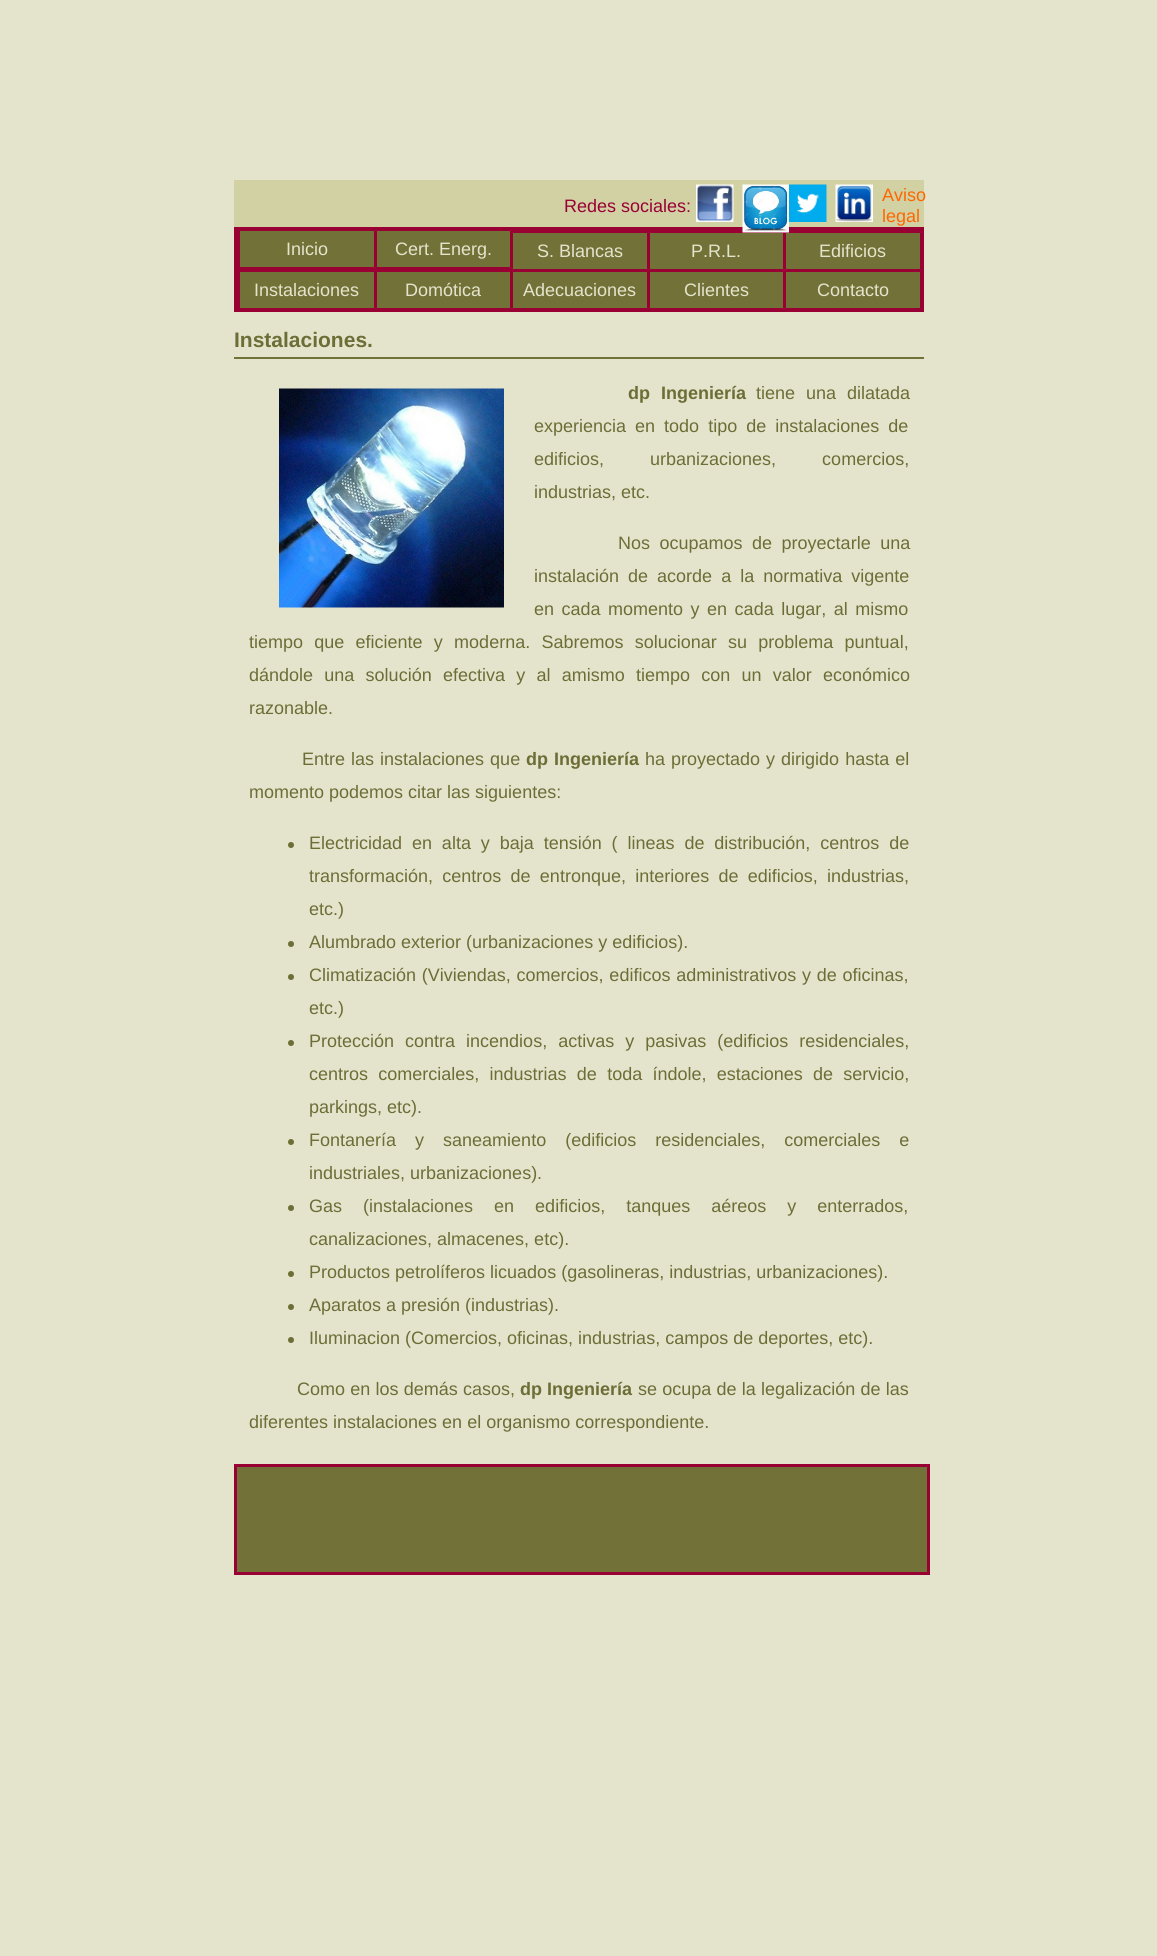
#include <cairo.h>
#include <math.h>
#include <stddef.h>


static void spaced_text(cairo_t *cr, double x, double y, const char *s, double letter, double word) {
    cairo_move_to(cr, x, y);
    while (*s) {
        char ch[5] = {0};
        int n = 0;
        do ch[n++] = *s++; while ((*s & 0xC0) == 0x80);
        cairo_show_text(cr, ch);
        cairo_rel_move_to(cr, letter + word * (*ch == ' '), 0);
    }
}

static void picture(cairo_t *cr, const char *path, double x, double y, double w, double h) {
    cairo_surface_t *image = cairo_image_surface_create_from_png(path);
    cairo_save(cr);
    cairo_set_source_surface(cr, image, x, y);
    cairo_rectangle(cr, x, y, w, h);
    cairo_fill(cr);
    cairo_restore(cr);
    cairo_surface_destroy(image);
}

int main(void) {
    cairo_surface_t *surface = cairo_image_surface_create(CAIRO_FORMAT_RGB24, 1157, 1956);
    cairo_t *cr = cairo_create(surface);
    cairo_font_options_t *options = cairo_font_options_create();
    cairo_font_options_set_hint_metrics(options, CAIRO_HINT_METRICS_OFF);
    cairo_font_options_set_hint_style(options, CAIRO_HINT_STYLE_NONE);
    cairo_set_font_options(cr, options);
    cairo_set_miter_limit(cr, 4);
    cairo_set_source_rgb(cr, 0.894, 0.894, 0.804);
    cairo_paint(cr);
    cairo_set_source_rgb(cr, 0.82, 0.82, 0.643);
    cairo_rectangle(cr, 234, 180, 690, 47);
    cairo_fill(cr);
    cairo_select_font_face(cr, "Liberation Sans", CAIRO_FONT_SLANT_NORMAL, CAIRO_FONT_WEIGHT_NORMAL);
    cairo_set_font_size(cr, 18);
    cairo_set_source_rgb(cr, 0.6, 0.004, 0.204);
    cairo_move_to(cr, 564, 212);
    cairo_show_text(cr, "Redes sociales:");
    picture(cr, "img1.png", 696, 184, 38, 38);
    cairo_rectangle(cr, 234, 227, 690, 85);
    cairo_fill(cr);
    picture(cr, "img2.png", 742, 184, 47, 49);
    picture(cr, "img3.png", 789, 184, 38, 38);
    picture(cr, "img4.png", 835, 184, 38, 38);
    cairo_set_source_rgb(cr, 1, 0.4, 0);
    cairo_move_to(cr, 882, 201);
    cairo_show_text(cr, "Aviso");
    cairo_move_to(cr, 882, 222);
    cairo_show_text(cr, "legal");
    cairo_set_source_rgb(cr, 0.447, 0.447, 0.22);
    cairo_rectangle(cr, 240, 231, 134, 36);
    cairo_fill(cr);
    cairo_set_source_rgb(cr, 0.894, 0.894, 0.804);
    cairo_move_to(cr, 286, 255);
    cairo_show_text(cr, "Inicio");
    cairo_set_source_rgb(cr, 0.447, 0.447, 0.22);
    cairo_rectangle(cr, 377, 231, 133, 36);
    cairo_fill(cr);
    cairo_set_source_rgb(cr, 0.894, 0.894, 0.804);
    cairo_move_to(cr, 395, 255);
    cairo_show_text(cr, "Cert. Energ.");
    cairo_set_source_rgb(cr, 0.447, 0.447, 0.22);
    cairo_rectangle(cr, 513, 233, 134, 36);
    cairo_fill(cr);
    cairo_set_source_rgb(cr, 0.894, 0.894, 0.804);
    cairo_move_to(cr, 537, 257);
    cairo_show_text(cr, "S. Blancas");
    cairo_set_source_rgb(cr, 0.447, 0.447, 0.22);
    cairo_rectangle(cr, 650, 233, 133, 36);
    cairo_fill(cr);
    cairo_set_source_rgb(cr, 0.894, 0.894, 0.804);
    cairo_move_to(cr, 691, 257);
    cairo_show_text(cr, "P.R.L.");
    cairo_set_source_rgb(cr, 0.447, 0.447, 0.22);
    cairo_rectangle(cr, 786, 233, 134, 36);
    cairo_fill(cr);
    cairo_set_source_rgb(cr, 0.894, 0.894, 0.804);
    cairo_move_to(cr, 819, 257);
    cairo_show_text(cr, "Edificios");
    cairo_set_source_rgb(cr, 0.447, 0.447, 0.22);
    cairo_rectangle(cr, 240, 272, 134, 36);
    cairo_fill(cr);
    cairo_set_source_rgb(cr, 0.894, 0.894, 0.804);
    cairo_move_to(cr, 254, 296);
    cairo_show_text(cr, "Instalaciones");
    cairo_set_source_rgb(cr, 0.447, 0.447, 0.22);
    cairo_rectangle(cr, 377, 272, 133, 36);
    cairo_fill(cr);
    cairo_set_source_rgb(cr, 0.894, 0.894, 0.804);
    cairo_move_to(cr, 405, 296);
    cairo_show_text(cr, "Domótica");
    cairo_set_source_rgb(cr, 0.447, 0.447, 0.22);
    cairo_rectangle(cr, 513, 272, 134, 36);
    cairo_fill(cr);
    cairo_set_source_rgb(cr, 0.894, 0.894, 0.804);
    cairo_move_to(cr, 523, 296);
    cairo_show_text(cr, "Adecuaciones");
    cairo_set_source_rgb(cr, 0.447, 0.447, 0.22);
    cairo_rectangle(cr, 650, 272, 133, 36);
    cairo_fill(cr);
    cairo_set_source_rgb(cr, 0.894, 0.894, 0.804);
    cairo_move_to(cr, 684, 296);
    cairo_show_text(cr, "Clientes");
    cairo_set_source_rgb(cr, 0.447, 0.447, 0.22);
    cairo_rectangle(cr, 786, 272, 134, 36);
    cairo_fill(cr);
    cairo_set_source_rgb(cr, 0.894, 0.894, 0.804);
    cairo_move_to(cr, 817, 296);
    cairo_show_text(cr, "Contacto");
    cairo_set_source_rgb(cr, 0.447, 0.447, 0.22);
    cairo_rectangle(cr, 234, 357, 690, 2);
    cairo_fill(cr);
    cairo_select_font_face(cr, "Liberation Sans", CAIRO_FONT_SLANT_NORMAL, CAIRO_FONT_WEIGHT_BOLD);
    cairo_set_font_size(cr, 21);
    cairo_set_source_rgb(cr, 0.427, 0.427, 0.212);
    cairo_move_to(cr, 234, 347);
    cairo_show_text(cr, "Instalaciones.");
    picture(cr, "img5.png", 279, 388, 225, 220);
    cairo_set_font_size(cr, 18);
    spaced_text(cr, 628, 399, "dp Ingeniería", 0, 6);
    cairo_select_font_face(cr, "Liberation Sans", CAIRO_FONT_SLANT_NORMAL, CAIRO_FONT_WEIGHT_NORMAL);
    spaced_text(cr, 756, 399, "tiene una dilatada", 0, 6);
    spaced_text(cr, 534, 432, "experiencia en todo tipo de instalaciones de", 0, 4);
    spaced_text(cr, 534, 465, "edificios, urbanizaciones, comercios,", 0, 41);
    cairo_move_to(cr, 534, 498);
    cairo_show_text(cr, "industrias, etc.");
    spaced_text(cr, 618, 549, "Nos ocupamos de proyectarle una", 0, 4.5);
    spaced_text(cr, 534, 582, "instalación de acorde a la normativa vigente", 0, 4);
    spaced_text(cr, 534, 615, "en cada momento y en cada lugar, al mismo", 0, 2.5);
    spaced_text(cr, 249, 648, "tiempo que eficiente y moderna. Sabremos solucionar su problema puntual,", 0, 6.25);
    spaced_text(cr, 249, 681, "dándole una solución efectiva y al amismo tiempo con un valor económico", 0, 6.25);
    cairo_move_to(cr, 249, 714);
    cairo_show_text(cr, "razonable.");
    spaced_text(cr, 302, 765, "Entre las instalaciones que", 0, 1);
    cairo_select_font_face(cr, "Liberation Sans", CAIRO_FONT_SLANT_NORMAL, CAIRO_FONT_WEIGHT_BOLD);
    spaced_text(cr, 526, 765, "dp Ingeniería", 0, 1);
    cairo_select_font_face(cr, "Liberation Sans", CAIRO_FONT_SLANT_NORMAL, CAIRO_FONT_WEIGHT_NORMAL);
    spaced_text(cr, 645, 765, "ha proyectado y dirigido hasta el", 0, 1);
    cairo_move_to(cr, 249, 798);
    cairo_show_text(cr, "momento podemos citar las siguientes:");
    cairo_new_path(cr);
    cairo_arc(cr, 291, 845, 3, 0, 2 * M_PI);
    cairo_fill(cr);
    spaced_text(cr, 309, 849, "Electricidad en alta y baja tensión ( lineas de distribución, centros de", 0, 4.9);
    spaced_text(cr, 309, 882, "transformación, centros de entronque, interiores de edificios, industrias,", 0, 4.25);
    cairo_move_to(cr, 309, 915);
    cairo_show_text(cr, "etc.)");
    cairo_new_path(cr);
    cairo_arc(cr, 291, 944, 3, 0, 2 * M_PI);
    cairo_fill(cr);
    cairo_move_to(cr, 309, 948);
    cairo_show_text(cr, "Alumbrado exterior (urbanizaciones y edificios).");
    cairo_new_path(cr);
    cairo_arc(cr, 291, 977, 3, 0, 2 * M_PI);
    cairo_fill(cr);
    spaced_text(cr, 309, 981, "Climatización (Viviendas, comercios, edificos administrativos y de oficinas,", 0, 0.75);
    cairo_move_to(cr, 309, 1014);
    cairo_show_text(cr, "etc.)");
    cairo_new_path(cr);
    cairo_arc(cr, 291, 1043, 3, 0, 2 * M_PI);
    cairo_fill(cr);
    spaced_text(cr, 309, 1047, "Protección contra incendios, activas y pasivas (edificios residenciales,", 0, 6);
    spaced_text(cr, 309, 1080, "centros comerciales, industrias de toda índole, estaciones de servicio,", 0, 5.25);
    cairo_move_to(cr, 309, 1113);
    cairo_show_text(cr, "parkings, etc).");
    cairo_new_path(cr);
    cairo_arc(cr, 291, 1142, 3, 0, 2 * M_PI);
    cairo_fill(cr);
    spaced_text(cr, 309, 1146, "Fontanería y saneamiento (edificios residenciales, comerciales e", 0, 14);
    cairo_move_to(cr, 309, 1179);
    cairo_show_text(cr, "industriales, urbanizaciones).");
    cairo_new_path(cr);
    cairo_arc(cr, 291, 1208, 3, 0, 2 * M_PI);
    cairo_fill(cr);
    spaced_text(cr, 309, 1212, "Gas (instalaciones en edificios, tanques aéreos y enterrados,", 0, 16);
    cairo_move_to(cr, 309, 1245);
    cairo_show_text(cr, "canalizaciones, almacenes, etc).");
    cairo_new_path(cr);
    cairo_arc(cr, 291, 1274, 3, 0, 2 * M_PI);
    cairo_fill(cr);
    cairo_move_to(cr, 309, 1278);
    cairo_show_text(cr, "Productos petrolíferos licuados (gasolineras, industrias, urbanizaciones).");
    cairo_new_path(cr);
    cairo_arc(cr, 291, 1307, 3, 0, 2 * M_PI);
    cairo_fill(cr);
    cairo_move_to(cr, 309, 1311);
    cairo_show_text(cr, "Aparatos a presión (industrias).");
    cairo_new_path(cr);
    cairo_arc(cr, 291, 1340, 3, 0, 2 * M_PI);
    cairo_fill(cr);
    cairo_move_to(cr, 309, 1344);
    cairo_show_text(cr, "Iluminacion (Comercios, oficinas, industrias, campos de deportes, etc).");
    spaced_text(cr, 297, 1395, "Como en los demás casos,", 0, 0.25);
    cairo_select_font_face(cr, "Liberation Sans", CAIRO_FONT_SLANT_NORMAL, CAIRO_FONT_WEIGHT_BOLD);
    cairo_move_to(cr, 520, 1395);
    cairo_show_text(cr, "dp Ingeniería");
    cairo_select_font_face(cr, "Liberation Sans", CAIRO_FONT_SLANT_NORMAL, CAIRO_FONT_WEIGHT_NORMAL);
    spaced_text(cr, 638, 1395, "se ocupa de la legalización de las", 0, 0.25);
    cairo_move_to(cr, 249, 1428);
    cairo_show_text(cr, "diferentes instalaciones en el organismo correspondiente.");
    cairo_set_source_rgb(cr, 0.447, 0.447, 0.22);
    cairo_rectangle(cr, 235.5, 1465.5, 693, 108);
    cairo_fill_preserve(cr);
    cairo_set_source_rgb(cr, 0.6, 0.004, 0.204);
    cairo_set_line_width(cr, 3);
    cairo_stroke(cr);
    cairo_surface_write_to_png(surface, "page.png");
    cairo_font_options_destroy(options);
    cairo_destroy(cr);
    cairo_surface_destroy(surface);
    return 0;
}
